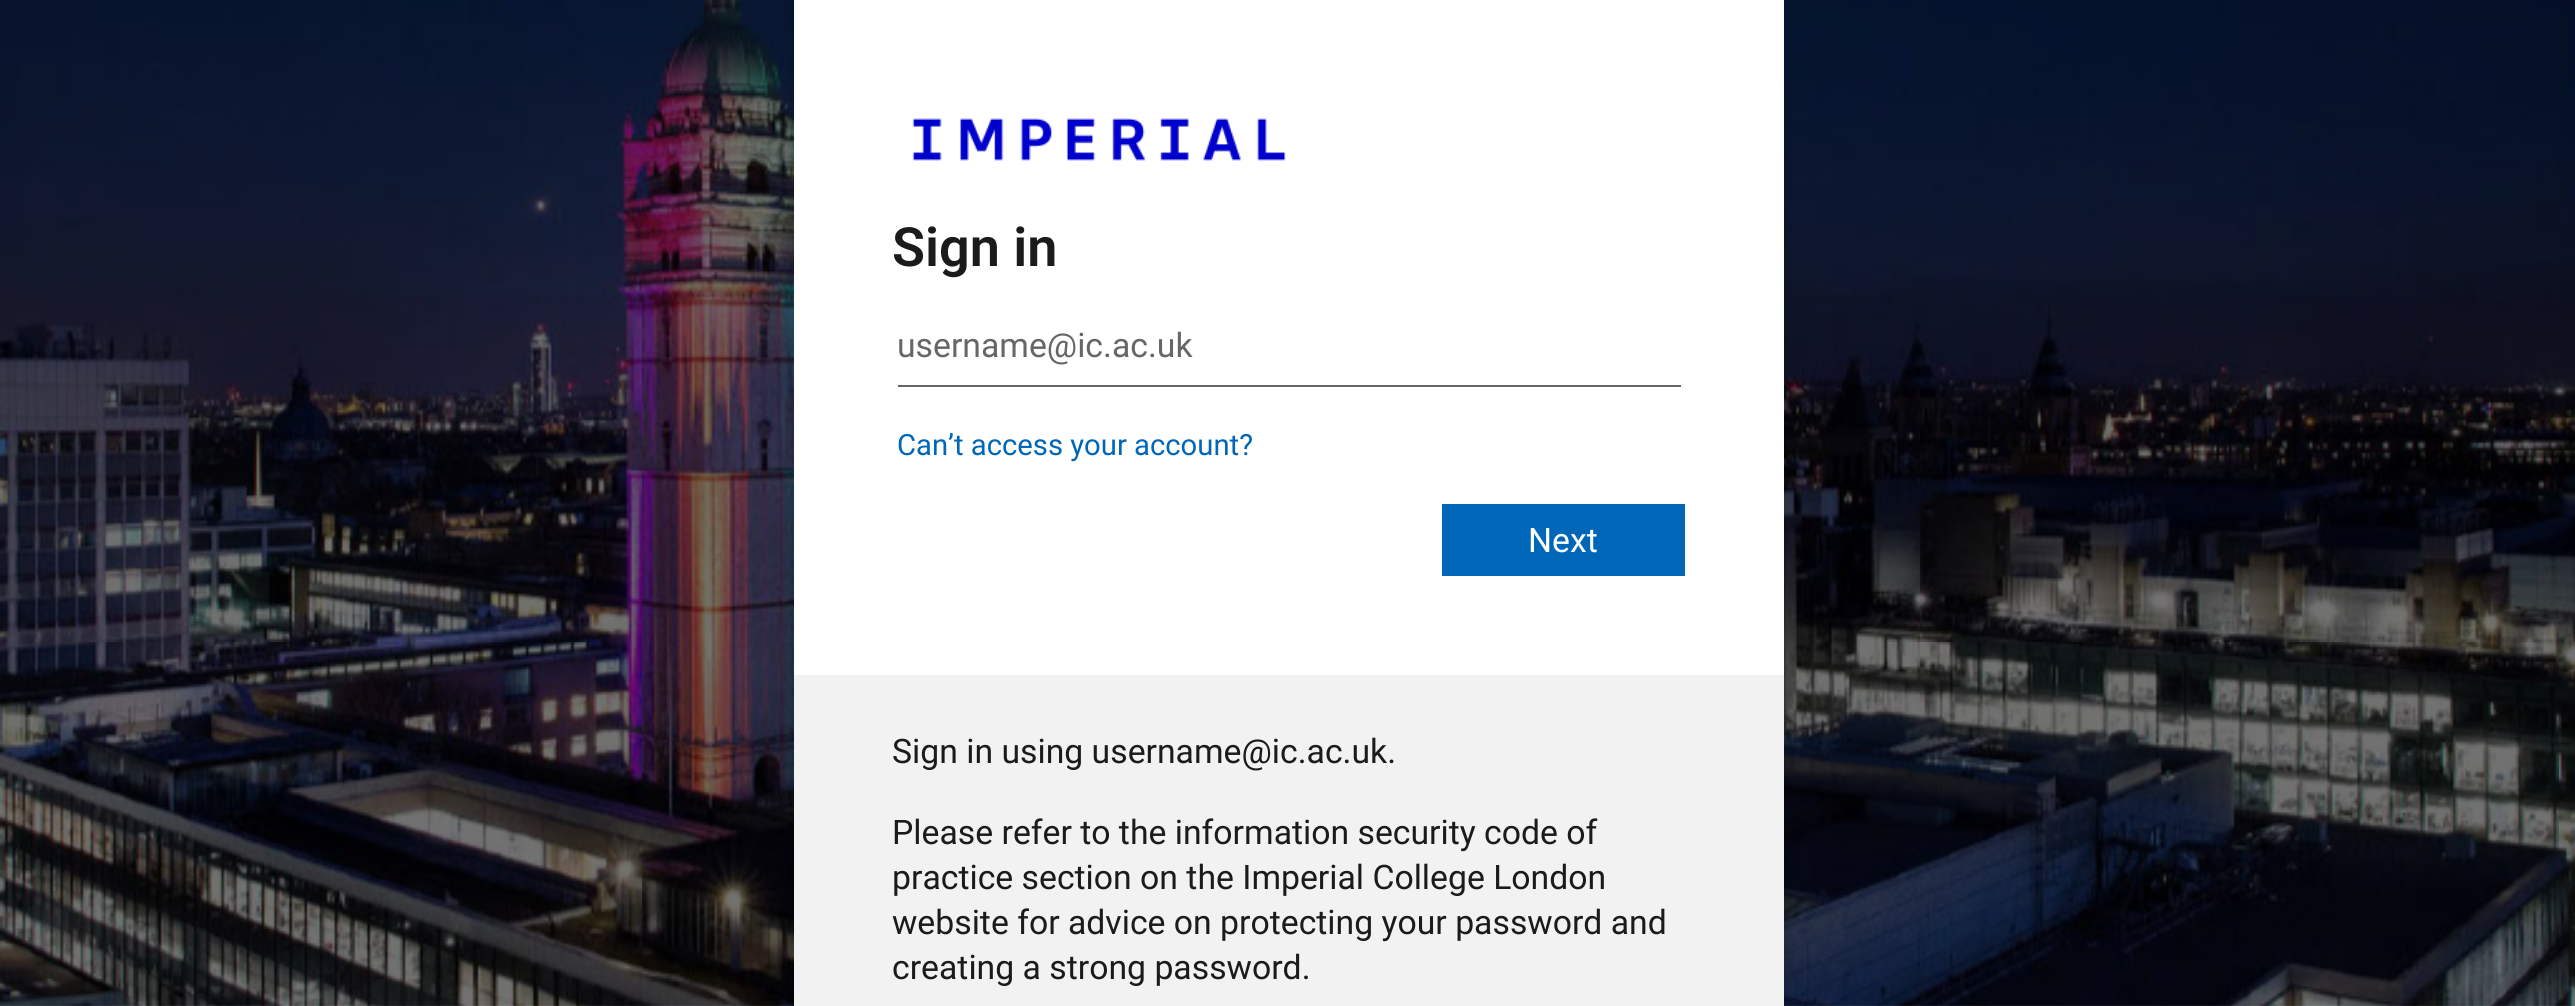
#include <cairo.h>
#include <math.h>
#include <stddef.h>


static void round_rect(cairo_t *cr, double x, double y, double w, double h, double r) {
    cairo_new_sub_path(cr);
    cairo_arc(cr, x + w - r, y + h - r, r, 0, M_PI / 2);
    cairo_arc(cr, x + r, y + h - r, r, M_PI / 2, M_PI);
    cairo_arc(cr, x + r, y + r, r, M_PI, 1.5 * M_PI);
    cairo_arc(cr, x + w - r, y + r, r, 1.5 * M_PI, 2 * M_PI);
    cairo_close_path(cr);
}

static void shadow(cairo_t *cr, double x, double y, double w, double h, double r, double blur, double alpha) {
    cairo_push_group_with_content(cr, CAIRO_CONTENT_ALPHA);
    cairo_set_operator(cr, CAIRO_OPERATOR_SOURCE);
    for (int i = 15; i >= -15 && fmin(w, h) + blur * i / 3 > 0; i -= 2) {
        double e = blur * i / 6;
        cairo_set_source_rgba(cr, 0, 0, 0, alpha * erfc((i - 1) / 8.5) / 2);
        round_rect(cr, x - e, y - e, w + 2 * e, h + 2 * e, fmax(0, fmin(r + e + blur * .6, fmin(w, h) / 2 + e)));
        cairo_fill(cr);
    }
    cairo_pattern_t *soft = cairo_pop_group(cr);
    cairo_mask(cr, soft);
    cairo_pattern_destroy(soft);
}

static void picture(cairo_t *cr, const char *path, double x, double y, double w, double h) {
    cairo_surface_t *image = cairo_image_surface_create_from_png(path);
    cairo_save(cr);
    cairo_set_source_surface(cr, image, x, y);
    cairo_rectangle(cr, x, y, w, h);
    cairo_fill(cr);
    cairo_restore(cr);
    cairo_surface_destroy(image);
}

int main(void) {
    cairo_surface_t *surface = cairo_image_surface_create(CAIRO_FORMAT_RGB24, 2575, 1006);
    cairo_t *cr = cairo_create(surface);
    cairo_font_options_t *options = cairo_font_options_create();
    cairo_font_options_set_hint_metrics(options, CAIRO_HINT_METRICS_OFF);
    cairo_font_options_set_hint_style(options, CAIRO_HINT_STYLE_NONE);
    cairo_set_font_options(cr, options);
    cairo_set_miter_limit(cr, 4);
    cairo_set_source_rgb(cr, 1, 1, 1);
    cairo_paint(cr);
    picture(cr, "img1.png", 0, 0, 2575, 1006);
    cairo_set_source_rgb(cr, 0, 0, 0);
    shadow(cr, 794, 5, 990, 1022, 0, 7, 0.2);
    cairo_set_source_rgb(cr, 1, 1, 1);
    cairo_rectangle(cr, 794, 0, 990, 675);
    cairo_fill(cr);
    picture(cr, "img2.png", 912, 118, 374, 43);
    cairo_select_font_face(cr, "Roboto SemiBold", CAIRO_FONT_SLANT_NORMAL, CAIRO_FONT_WEIGHT_NORMAL);
    cairo_set_font_size(cr, 54);
    cairo_set_source_rgb(cr, 0.106, 0.106, 0.106);
    cairo_move_to(cr, 892, 266);
    cairo_show_text(cr, "Sign in");
    cairo_set_source_rgb(cr, 0.4, 0.4, 0.4);
    cairo_rectangle(cr, 898, 385, 783, 2);
    cairo_fill(cr);
    cairo_select_font_face(cr, "Roboto", CAIRO_FONT_SLANT_NORMAL, CAIRO_FONT_WEIGHT_NORMAL);
    cairo_set_font_size(cr, 33.75);
    cairo_move_to(cr, 897, 357);
    cairo_show_text(cr, "username@ic.ac.uk");
    cairo_set_font_size(cr, 29.25);
    cairo_set_source_rgb(cr, 0, 0.404, 0.722);
    cairo_move_to(cr, 897, 455);
    cairo_show_text(cr, "Can’t access your account?");
    cairo_rectangle(cr, 1442, 504, 243, 72);
    cairo_fill(cr);
    cairo_set_font_size(cr, 33.75);
    cairo_set_source_rgb(cr, 1, 1, 1);
    cairo_move_to(cr, 1528, 552);
    cairo_show_text(cr, "Next");
    cairo_set_source_rgb(cr, 0.949, 0.949, 0.949);
    cairo_rectangle(cr, 794, 675, 990, 331);
    cairo_fill(cr);
    cairo_set_source_rgb(cr, 0.106, 0.106, 0.106);
    cairo_move_to(cr, 892, 763);
    cairo_show_text(cr, "Sign in using username@ic.ac.uk.");
    cairo_move_to(cr, 892, 844);
    cairo_show_text(cr, "Please refer to the information security code of");
    cairo_move_to(cr, 892, 889);
    cairo_show_text(cr, "practice section on the Imperial College London");
    cairo_move_to(cr, 892, 934);
    cairo_show_text(cr, "website for advice on protecting your password and");
    cairo_move_to(cr, 892, 979);
    cairo_show_text(cr, "creating a strong password.");
    cairo_surface_write_to_png(surface, "page.png");
    cairo_font_options_destroy(options);
    cairo_destroy(cr);
    cairo_surface_destroy(surface);
    return 0;
}
